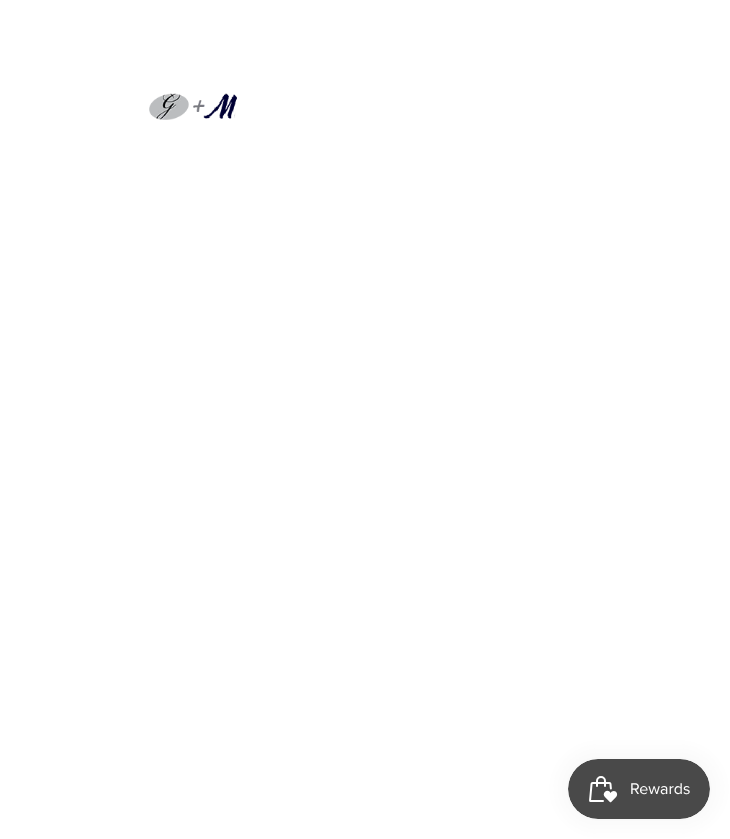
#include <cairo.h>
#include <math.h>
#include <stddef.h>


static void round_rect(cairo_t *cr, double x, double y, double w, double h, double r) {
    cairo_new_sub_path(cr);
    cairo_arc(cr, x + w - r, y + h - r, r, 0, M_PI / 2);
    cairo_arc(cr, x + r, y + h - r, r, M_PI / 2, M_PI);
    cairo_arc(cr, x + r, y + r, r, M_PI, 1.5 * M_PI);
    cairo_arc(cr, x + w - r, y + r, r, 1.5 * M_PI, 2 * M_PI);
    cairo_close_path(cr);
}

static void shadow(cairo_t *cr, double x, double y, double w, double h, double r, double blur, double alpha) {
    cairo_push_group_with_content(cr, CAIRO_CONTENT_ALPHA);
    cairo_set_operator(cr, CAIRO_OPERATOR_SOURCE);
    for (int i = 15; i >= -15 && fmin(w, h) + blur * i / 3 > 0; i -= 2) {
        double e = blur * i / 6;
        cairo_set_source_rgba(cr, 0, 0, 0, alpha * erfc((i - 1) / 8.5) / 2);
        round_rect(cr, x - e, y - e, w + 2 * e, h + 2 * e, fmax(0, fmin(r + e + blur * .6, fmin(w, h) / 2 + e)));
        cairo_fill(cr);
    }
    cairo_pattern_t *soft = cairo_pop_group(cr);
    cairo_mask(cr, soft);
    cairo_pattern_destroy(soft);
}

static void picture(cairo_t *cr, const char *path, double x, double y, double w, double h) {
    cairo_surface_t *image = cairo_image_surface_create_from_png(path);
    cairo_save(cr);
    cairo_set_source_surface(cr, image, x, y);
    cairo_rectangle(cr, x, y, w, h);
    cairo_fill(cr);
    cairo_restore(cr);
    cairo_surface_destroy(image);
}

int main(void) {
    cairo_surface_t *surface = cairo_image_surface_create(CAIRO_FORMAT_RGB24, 730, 839);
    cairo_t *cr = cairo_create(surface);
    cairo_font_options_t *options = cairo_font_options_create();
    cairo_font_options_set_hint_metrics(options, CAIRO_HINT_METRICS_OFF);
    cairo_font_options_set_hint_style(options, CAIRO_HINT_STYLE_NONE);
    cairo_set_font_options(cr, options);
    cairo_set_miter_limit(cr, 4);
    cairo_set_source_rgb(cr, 1, 1, 1);
    cairo_paint(cr);
    picture(cr, "img1.png", 149, 93, 88, 27);
    cairo_set_source_rgb(cr, 0, 0, 0);
    shadow(cr, 568, 759, 142, 60, 30, 12.5, 0.05);
    picture(cr, "img2.png", 568, 759, 142, 60);
    cairo_surface_write_to_png(surface, "page.png");
    cairo_font_options_destroy(options);
    cairo_destroy(cr);
    cairo_surface_destroy(surface);
    return 0;
}
